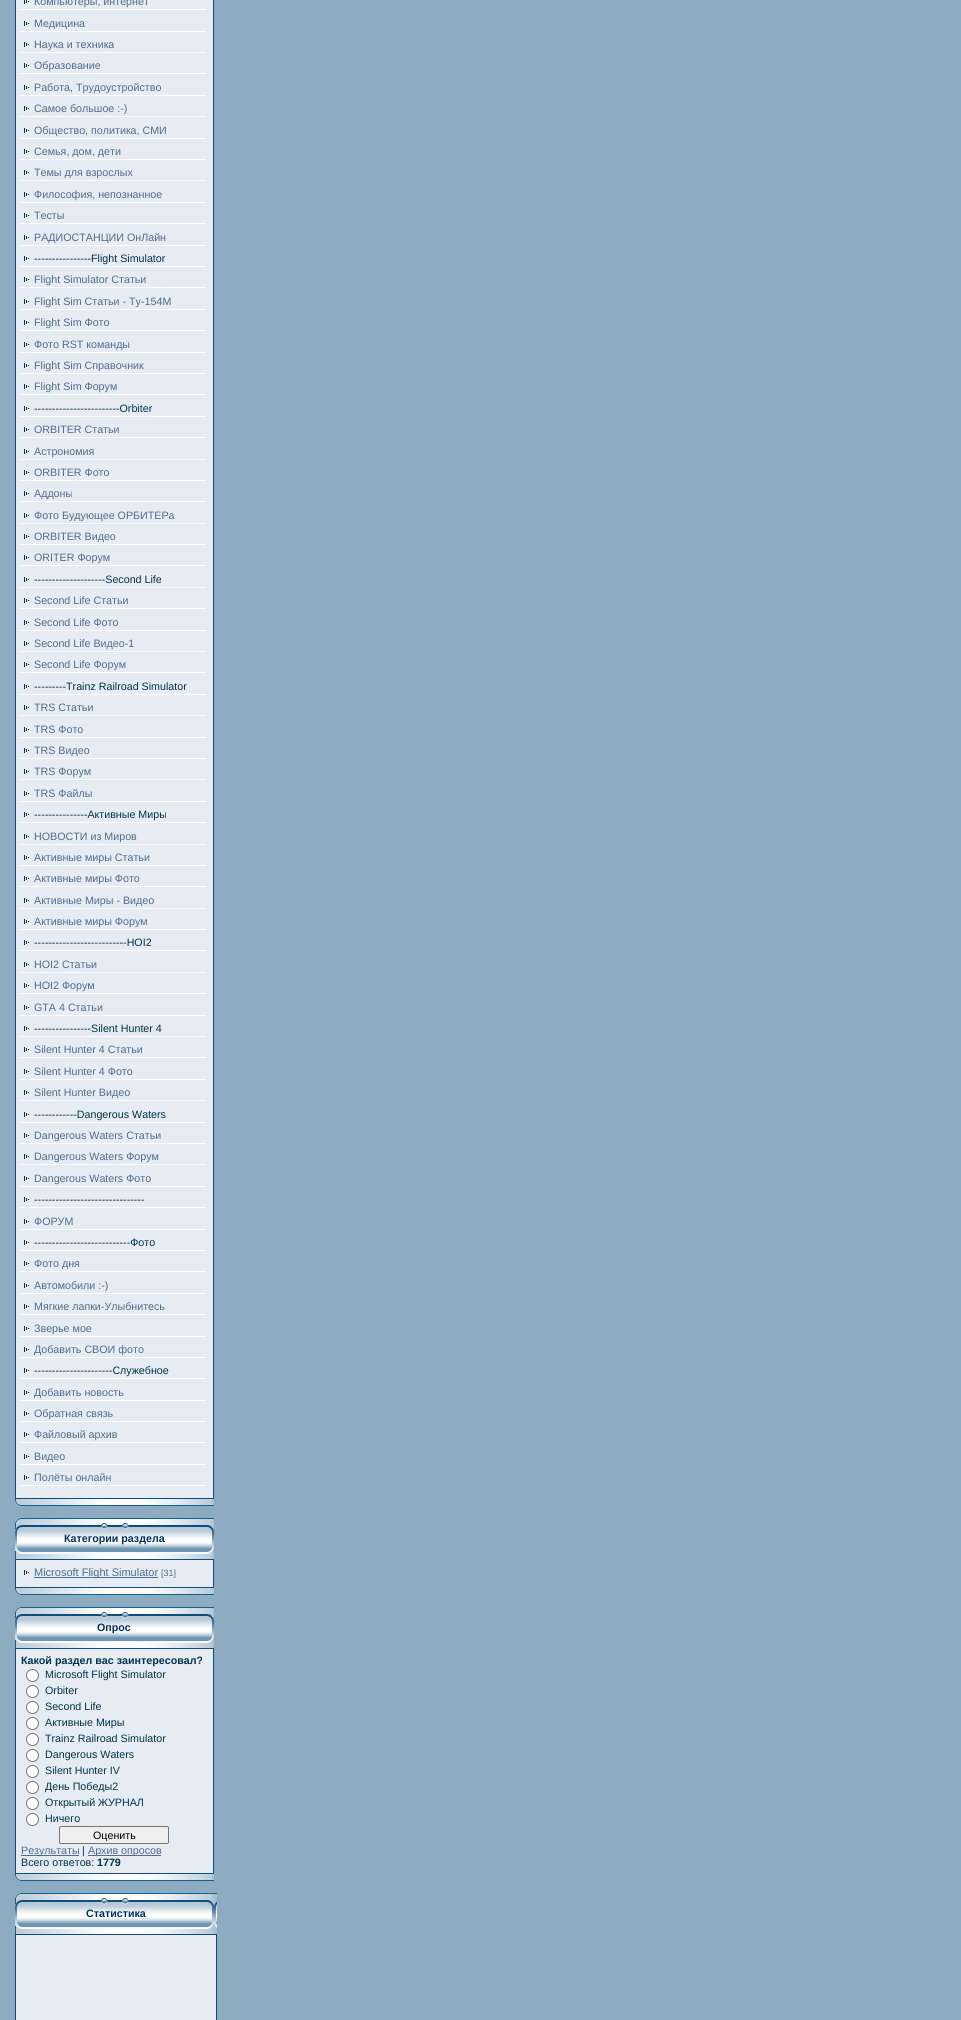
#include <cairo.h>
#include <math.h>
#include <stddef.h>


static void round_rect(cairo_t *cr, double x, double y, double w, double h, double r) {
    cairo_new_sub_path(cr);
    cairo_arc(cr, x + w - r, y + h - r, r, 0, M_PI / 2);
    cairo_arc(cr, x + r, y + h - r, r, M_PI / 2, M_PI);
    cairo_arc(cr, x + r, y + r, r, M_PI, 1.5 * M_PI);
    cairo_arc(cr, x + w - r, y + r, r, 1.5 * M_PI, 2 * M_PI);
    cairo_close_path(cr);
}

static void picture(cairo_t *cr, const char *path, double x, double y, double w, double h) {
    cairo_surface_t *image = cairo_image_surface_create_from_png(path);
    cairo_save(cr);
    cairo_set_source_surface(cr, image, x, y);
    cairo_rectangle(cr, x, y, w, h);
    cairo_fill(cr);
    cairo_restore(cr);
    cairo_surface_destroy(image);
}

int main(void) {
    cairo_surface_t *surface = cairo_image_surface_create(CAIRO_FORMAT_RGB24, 961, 2020);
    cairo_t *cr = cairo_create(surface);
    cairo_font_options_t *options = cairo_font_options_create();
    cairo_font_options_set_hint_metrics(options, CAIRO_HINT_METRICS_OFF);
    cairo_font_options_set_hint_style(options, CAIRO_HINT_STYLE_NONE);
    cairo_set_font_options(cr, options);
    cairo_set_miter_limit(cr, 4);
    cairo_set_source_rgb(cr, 0.553, 0.675, 0.761);
    cairo_paint(cr);
    picture(cr, "img1.png", 15, 1499, 199, 1);
    cairo_set_source_rgb(cr, 0.902, 0.925, 0.945);
    cairo_rectangle(cr, 15.5, -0.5, 198, 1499);
    cairo_fill_preserve(cr);
    cairo_set_source_rgb(cr, 0.055, 0.298, 0.486);
    cairo_set_line_width(cr, 1);
    cairo_stroke(cr);
    picture(cr, "img2.png", 24, 0, 5, 4);
    cairo_set_source_rgb(cr, 1, 1, 1);
    cairo_rectangle(cr, 21, 9, 185, 1);
    cairo_fill(cr);
    cairo_select_font_face(cr, "Liberation Sans", CAIRO_FONT_SLANT_NORMAL, CAIRO_FONT_WEIGHT_NORMAL);
    cairo_set_font_size(cr, 10.7);
    cairo_set_source_rgb(cr, 0.302, 0.427, 0.569);
    cairo_move_to(cr, 34, 5);
    cairo_show_text(cr, "Компьютеры, интернет");
    picture(cr, "img3.png", 24, 21, 5, 5);
    cairo_set_source_rgb(cr, 1, 1, 1);
    cairo_rectangle(cr, 21, 31, 185, 1);
    cairo_fill(cr);
    cairo_set_source_rgb(cr, 0.302, 0.427, 0.569);
    cairo_move_to(cr, 34, 27);
    cairo_show_text(cr, "Медицина");
    picture(cr, "img3.png", 24, 42, 5, 5);
    cairo_set_source_rgb(cr, 1, 1, 1);
    cairo_rectangle(cr, 21, 52, 185, 1);
    cairo_fill(cr);
    cairo_set_source_rgb(cr, 0.302, 0.427, 0.569);
    cairo_move_to(cr, 34, 48);
    cairo_show_text(cr, "Наука и техника");
    picture(cr, "img3.png", 24, 63, 5, 5);
    cairo_set_source_rgb(cr, 1, 1, 1);
    cairo_rectangle(cr, 21, 73, 185, 1);
    cairo_fill(cr);
    cairo_set_source_rgb(cr, 0.302, 0.427, 0.569);
    cairo_move_to(cr, 34, 69);
    cairo_show_text(cr, "Образование");
    picture(cr, "img3.png", 24, 85, 5, 5);
    cairo_set_source_rgb(cr, 1, 1, 1);
    cairo_rectangle(cr, 21, 95, 185, 1);
    cairo_fill(cr);
    cairo_set_source_rgb(cr, 0.302, 0.427, 0.569);
    cairo_move_to(cr, 34, 91);
    cairo_show_text(cr, "Работа, Трудоустройство");
    picture(cr, "img3.png", 24, 106, 5, 5);
    cairo_set_source_rgb(cr, 1, 1, 1);
    cairo_rectangle(cr, 21, 116, 185, 1);
    cairo_fill(cr);
    cairo_set_source_rgb(cr, 0.302, 0.427, 0.569);
    cairo_move_to(cr, 34, 112);
    cairo_show_text(cr, "Самое большое :-)");
    picture(cr, "img3.png", 24, 128, 5, 5);
    cairo_set_source_rgb(cr, 1, 1, 1);
    cairo_rectangle(cr, 21, 138, 185, 1);
    cairo_fill(cr);
    cairo_set_source_rgb(cr, 0.302, 0.427, 0.569);
    cairo_move_to(cr, 34, 134);
    cairo_show_text(cr, "Общество, политика, СМИ");
    picture(cr, "img3.png", 24, 149, 5, 5);
    cairo_set_source_rgb(cr, 1, 1, 1);
    cairo_rectangle(cr, 21, 159, 185, 1);
    cairo_fill(cr);
    cairo_set_source_rgb(cr, 0.302, 0.427, 0.569);
    cairo_move_to(cr, 34, 155);
    cairo_show_text(cr, "Семья, дом, дети");
    picture(cr, "img3.png", 24, 170, 5, 5);
    cairo_set_source_rgb(cr, 1, 1, 1);
    cairo_rectangle(cr, 21, 180, 185, 1);
    cairo_fill(cr);
    cairo_set_source_rgb(cr, 0.302, 0.427, 0.569);
    cairo_move_to(cr, 34, 176);
    cairo_show_text(cr, "Темы для взрослых");
    picture(cr, "img3.png", 24, 192, 5, 5);
    cairo_set_source_rgb(cr, 1, 1, 1);
    cairo_rectangle(cr, 21, 202, 185, 1);
    cairo_fill(cr);
    cairo_set_source_rgb(cr, 0.302, 0.427, 0.569);
    cairo_move_to(cr, 34, 198);
    cairo_show_text(cr, "Философия, непознанное");
    picture(cr, "img3.png", 24, 213, 5, 5);
    cairo_set_source_rgb(cr, 1, 1, 1);
    cairo_rectangle(cr, 21, 223, 185, 1);
    cairo_fill(cr);
    cairo_set_source_rgb(cr, 0.302, 0.427, 0.569);
    cairo_move_to(cr, 34, 219);
    cairo_show_text(cr, "Тесты");
    picture(cr, "img3.png", 24, 235, 5, 5);
    cairo_set_source_rgb(cr, 1, 1, 1);
    cairo_rectangle(cr, 21, 245, 185, 1);
    cairo_fill(cr);
    cairo_set_source_rgb(cr, 0.302, 0.427, 0.569);
    cairo_move_to(cr, 34, 241);
    cairo_show_text(cr, "РАДИОСТАНЦИИ ОнЛайн");
    picture(cr, "img3.png", 24, 256, 5, 5);
    cairo_set_source_rgb(cr, 1, 1, 1);
    cairo_rectangle(cr, 21, 266, 185, 1);
    cairo_fill(cr);
    cairo_set_source_rgb(cr, 0.004, 0.196, 0.306);
    cairo_move_to(cr, 34, 262);
    cairo_show_text(cr, "----------------Flight Simulator");
    picture(cr, "img3.png", 24, 277, 5, 5);
    cairo_set_source_rgb(cr, 1, 1, 1);
    cairo_rectangle(cr, 21, 287, 185, 1);
    cairo_fill(cr);
    cairo_set_source_rgb(cr, 0.302, 0.427, 0.569);
    cairo_move_to(cr, 34, 283);
    cairo_show_text(cr, "Flight Simulator Статьи");
    picture(cr, "img3.png", 24, 299, 5, 5);
    cairo_set_source_rgb(cr, 1, 1, 1);
    cairo_rectangle(cr, 21, 309, 185, 1);
    cairo_fill(cr);
    cairo_set_source_rgb(cr, 0.302, 0.427, 0.569);
    cairo_move_to(cr, 34, 305);
    cairo_show_text(cr, "Flight Sim Статьи - Ту-154М");
    picture(cr, "img3.png", 24, 320, 5, 5);
    cairo_set_source_rgb(cr, 1, 1, 1);
    cairo_rectangle(cr, 21, 330, 185, 1);
    cairo_fill(cr);
    cairo_set_source_rgb(cr, 0.302, 0.427, 0.569);
    cairo_move_to(cr, 34, 326);
    cairo_show_text(cr, "Flight Sim Фото");
    picture(cr, "img3.png", 24, 342, 5, 5);
    cairo_set_source_rgb(cr, 1, 1, 1);
    cairo_rectangle(cr, 21, 352, 185, 1);
    cairo_fill(cr);
    cairo_set_source_rgb(cr, 0.302, 0.427, 0.569);
    cairo_move_to(cr, 34, 348);
    cairo_show_text(cr, "Фото RST команды");
    picture(cr, "img3.png", 24, 363, 5, 5);
    cairo_set_source_rgb(cr, 1, 1, 1);
    cairo_rectangle(cr, 21, 373, 185, 1);
    cairo_fill(cr);
    cairo_set_source_rgb(cr, 0.302, 0.427, 0.569);
    cairo_move_to(cr, 34, 369);
    cairo_show_text(cr, "Flight Sim Справочник");
    picture(cr, "img3.png", 24, 384, 5, 5);
    cairo_set_source_rgb(cr, 1, 1, 1);
    cairo_rectangle(cr, 21, 394, 185, 1);
    cairo_fill(cr);
    cairo_set_source_rgb(cr, 0.302, 0.427, 0.569);
    cairo_move_to(cr, 34, 390);
    cairo_show_text(cr, "Flight Sim Форум");
    picture(cr, "img3.png", 24, 406, 5, 5);
    cairo_set_source_rgb(cr, 1, 1, 1);
    cairo_rectangle(cr, 21, 416, 185, 1);
    cairo_fill(cr);
    cairo_set_source_rgb(cr, 0.004, 0.196, 0.306);
    cairo_move_to(cr, 34, 412);
    cairo_show_text(cr, "------------------------Orbiter");
    picture(cr, "img3.png", 24, 427, 5, 5);
    cairo_set_source_rgb(cr, 1, 1, 1);
    cairo_rectangle(cr, 21, 437, 185, 1);
    cairo_fill(cr);
    cairo_set_source_rgb(cr, 0.302, 0.427, 0.569);
    cairo_move_to(cr, 34, 433);
    cairo_show_text(cr, "ORBITER Статьи");
    picture(cr, "img3.png", 24, 449, 5, 5);
    cairo_set_source_rgb(cr, 1, 1, 1);
    cairo_rectangle(cr, 21, 459, 185, 1);
    cairo_fill(cr);
    cairo_set_source_rgb(cr, 0.302, 0.427, 0.569);
    cairo_move_to(cr, 34, 455);
    cairo_show_text(cr, "Астрономия");
    picture(cr, "img3.png", 24, 470, 5, 5);
    cairo_set_source_rgb(cr, 1, 1, 1);
    cairo_rectangle(cr, 21, 480, 185, 1);
    cairo_fill(cr);
    cairo_set_source_rgb(cr, 0.302, 0.427, 0.569);
    cairo_move_to(cr, 34, 476);
    cairo_show_text(cr, "ORBITER Фото");
    picture(cr, "img3.png", 24, 491, 5, 5);
    cairo_set_source_rgb(cr, 1, 1, 1);
    cairo_rectangle(cr, 21, 501, 185, 1);
    cairo_fill(cr);
    cairo_set_source_rgb(cr, 0.302, 0.427, 0.569);
    cairo_move_to(cr, 34, 497);
    cairo_show_text(cr, "Аддоны");
    picture(cr, "img3.png", 24, 513, 5, 5);
    cairo_set_source_rgb(cr, 1, 1, 1);
    cairo_rectangle(cr, 21, 523, 185, 1);
    cairo_fill(cr);
    cairo_set_source_rgb(cr, 0.302, 0.427, 0.569);
    cairo_move_to(cr, 34, 519);
    cairo_show_text(cr, "Фото Будующее ОРБИТЕРа");
    picture(cr, "img3.png", 24, 534, 5, 5);
    cairo_set_source_rgb(cr, 1, 1, 1);
    cairo_rectangle(cr, 21, 544, 185, 1);
    cairo_fill(cr);
    cairo_set_source_rgb(cr, 0.302, 0.427, 0.569);
    cairo_move_to(cr, 34, 540);
    cairo_show_text(cr, "ORBITER Видео");
    picture(cr, "img3.png", 24, 555, 5, 5);
    cairo_set_source_rgb(cr, 1, 1, 1);
    cairo_rectangle(cr, 21, 565, 185, 1);
    cairo_fill(cr);
    cairo_set_source_rgb(cr, 0.302, 0.427, 0.569);
    cairo_move_to(cr, 34, 561);
    cairo_show_text(cr, "ORITER Форум");
    picture(cr, "img3.png", 24, 577, 5, 5);
    cairo_set_source_rgb(cr, 1, 1, 1);
    cairo_rectangle(cr, 21, 587, 185, 1);
    cairo_fill(cr);
    cairo_set_source_rgb(cr, 0.004, 0.196, 0.306);
    cairo_move_to(cr, 34, 583);
    cairo_show_text(cr, "--------------------Second Life");
    picture(cr, "img3.png", 24, 598, 5, 5);
    cairo_set_source_rgb(cr, 1, 1, 1);
    cairo_rectangle(cr, 21, 608, 185, 1);
    cairo_fill(cr);
    cairo_set_source_rgb(cr, 0.302, 0.427, 0.569);
    cairo_move_to(cr, 34, 604);
    cairo_show_text(cr, "Second Life Статьи");
    picture(cr, "img3.png", 24, 620, 5, 5);
    cairo_set_source_rgb(cr, 1, 1, 1);
    cairo_rectangle(cr, 21, 630, 185, 1);
    cairo_fill(cr);
    cairo_set_source_rgb(cr, 0.302, 0.427, 0.569);
    cairo_move_to(cr, 34, 626);
    cairo_show_text(cr, "Second Life Фото");
    picture(cr, "img3.png", 24, 641, 5, 5);
    cairo_set_source_rgb(cr, 1, 1, 1);
    cairo_rectangle(cr, 21, 651, 185, 1);
    cairo_fill(cr);
    cairo_set_source_rgb(cr, 0.302, 0.427, 0.569);
    cairo_move_to(cr, 34, 647);
    cairo_show_text(cr, "Second Life Видео-1");
    picture(cr, "img3.png", 24, 662, 5, 5);
    cairo_set_source_rgb(cr, 1, 1, 1);
    cairo_rectangle(cr, 21, 672, 185, 1);
    cairo_fill(cr);
    cairo_set_source_rgb(cr, 0.302, 0.427, 0.569);
    cairo_move_to(cr, 34, 668);
    cairo_show_text(cr, "Second Life Форум");
    picture(cr, "img3.png", 24, 684, 5, 5);
    cairo_set_source_rgb(cr, 1, 1, 1);
    cairo_rectangle(cr, 21, 694, 185, 1);
    cairo_fill(cr);
    cairo_set_source_rgb(cr, 0.004, 0.196, 0.306);
    cairo_move_to(cr, 34, 690);
    cairo_show_text(cr, "---------Trainz Railroad Simulator");
    picture(cr, "img3.png", 24, 705, 5, 5);
    cairo_set_source_rgb(cr, 1, 1, 1);
    cairo_rectangle(cr, 21, 715, 185, 1);
    cairo_fill(cr);
    cairo_set_source_rgb(cr, 0.302, 0.427, 0.569);
    cairo_move_to(cr, 34, 711);
    cairo_show_text(cr, "TRS Статьи");
    picture(cr, "img3.png", 24, 727, 5, 5);
    cairo_set_source_rgb(cr, 1, 1, 1);
    cairo_rectangle(cr, 21, 737, 185, 1);
    cairo_fill(cr);
    cairo_set_source_rgb(cr, 0.302, 0.427, 0.569);
    cairo_move_to(cr, 34, 733);
    cairo_show_text(cr, "TRS Фото");
    picture(cr, "img3.png", 24, 748, 5, 5);
    cairo_set_source_rgb(cr, 1, 1, 1);
    cairo_rectangle(cr, 21, 758, 185, 1);
    cairo_fill(cr);
    cairo_set_source_rgb(cr, 0.302, 0.427, 0.569);
    cairo_move_to(cr, 34, 754);
    cairo_show_text(cr, "TRS Видео");
    picture(cr, "img3.png", 24, 769, 5, 5);
    cairo_set_source_rgb(cr, 1, 1, 1);
    cairo_rectangle(cr, 21, 779, 185, 1);
    cairo_fill(cr);
    cairo_set_source_rgb(cr, 0.302, 0.427, 0.569);
    cairo_move_to(cr, 34, 775);
    cairo_show_text(cr, "TRS Форум");
    picture(cr, "img3.png", 24, 791, 5, 5);
    cairo_set_source_rgb(cr, 1, 1, 1);
    cairo_rectangle(cr, 21, 801, 185, 1);
    cairo_fill(cr);
    cairo_set_source_rgb(cr, 0.302, 0.427, 0.569);
    cairo_move_to(cr, 34, 797);
    cairo_show_text(cr, "TRS Файлы");
    picture(cr, "img3.png", 24, 812, 5, 5);
    cairo_set_source_rgb(cr, 1, 1, 1);
    cairo_rectangle(cr, 21, 822, 185, 1);
    cairo_fill(cr);
    cairo_set_source_rgb(cr, 0.004, 0.196, 0.306);
    cairo_move_to(cr, 34, 818);
    cairo_show_text(cr, "---------------Активные Миры");
    picture(cr, "img3.png", 24, 834, 5, 5);
    cairo_set_source_rgb(cr, 1, 1, 1);
    cairo_rectangle(cr, 21, 844, 185, 1);
    cairo_fill(cr);
    cairo_set_source_rgb(cr, 0.302, 0.427, 0.569);
    cairo_move_to(cr, 34, 840);
    cairo_show_text(cr, "НОВОСТИ из Миров");
    picture(cr, "img3.png", 24, 855, 5, 5);
    cairo_set_source_rgb(cr, 1, 1, 1);
    cairo_rectangle(cr, 21, 865, 185, 1);
    cairo_fill(cr);
    cairo_set_source_rgb(cr, 0.302, 0.427, 0.569);
    cairo_move_to(cr, 34, 861);
    cairo_show_text(cr, "Активные миры Статьи");
    picture(cr, "img3.png", 24, 876, 5, 5);
    cairo_set_source_rgb(cr, 1, 1, 1);
    cairo_rectangle(cr, 21, 886, 185, 1);
    cairo_fill(cr);
    cairo_set_source_rgb(cr, 0.302, 0.427, 0.569);
    cairo_move_to(cr, 34, 882);
    cairo_show_text(cr, "Активные миры Фото");
    picture(cr, "img3.png", 24, 898, 5, 5);
    cairo_set_source_rgb(cr, 1, 1, 1);
    cairo_rectangle(cr, 21, 908, 185, 1);
    cairo_fill(cr);
    cairo_set_source_rgb(cr, 0.302, 0.427, 0.569);
    cairo_move_to(cr, 34, 904);
    cairo_show_text(cr, "Активные Миры - Видео");
    picture(cr, "img3.png", 24, 919, 5, 5);
    cairo_set_source_rgb(cr, 1, 1, 1);
    cairo_rectangle(cr, 21, 929, 185, 1);
    cairo_fill(cr);
    cairo_set_source_rgb(cr, 0.302, 0.427, 0.569);
    cairo_move_to(cr, 34, 925);
    cairo_show_text(cr, "Активные миры Форум");
    picture(cr, "img3.png", 24, 940, 5, 5);
    cairo_set_source_rgb(cr, 1, 1, 1);
    cairo_rectangle(cr, 21, 950, 185, 1);
    cairo_fill(cr);
    cairo_set_source_rgb(cr, 0.004, 0.196, 0.306);
    cairo_move_to(cr, 34, 946);
    cairo_show_text(cr, "--------------------------HOI2");
    picture(cr, "img3.png", 24, 962, 5, 5);
    cairo_set_source_rgb(cr, 1, 1, 1);
    cairo_rectangle(cr, 21, 972, 185, 1);
    cairo_fill(cr);
    cairo_set_source_rgb(cr, 0.302, 0.427, 0.569);
    cairo_move_to(cr, 34, 968);
    cairo_show_text(cr, "HOI2 Статьи");
    picture(cr, "img3.png", 24, 983, 5, 5);
    cairo_set_source_rgb(cr, 1, 1, 1);
    cairo_rectangle(cr, 21, 993, 185, 1);
    cairo_fill(cr);
    cairo_set_source_rgb(cr, 0.302, 0.427, 0.569);
    cairo_move_to(cr, 34, 989);
    cairo_show_text(cr, "HOI2 Форум");
    picture(cr, "img3.png", 24, 1005, 5, 5);
    cairo_set_source_rgb(cr, 1, 1, 1);
    cairo_rectangle(cr, 21, 1015, 185, 1);
    cairo_fill(cr);
    cairo_set_source_rgb(cr, 0.302, 0.427, 0.569);
    cairo_move_to(cr, 34, 1011);
    cairo_show_text(cr, "GTA 4 Статьи");
    picture(cr, "img3.png", 24, 1026, 5, 5);
    cairo_set_source_rgb(cr, 1, 1, 1);
    cairo_rectangle(cr, 21, 1036, 185, 1);
    cairo_fill(cr);
    cairo_set_source_rgb(cr, 0.004, 0.196, 0.306);
    cairo_move_to(cr, 34, 1032);
    cairo_show_text(cr, "----------------Silent Hunter 4");
    picture(cr, "img3.png", 24, 1047, 5, 5);
    cairo_set_source_rgb(cr, 1, 1, 1);
    cairo_rectangle(cr, 21, 1057, 185, 1);
    cairo_fill(cr);
    cairo_set_source_rgb(cr, 0.302, 0.427, 0.569);
    cairo_move_to(cr, 34, 1053);
    cairo_show_text(cr, "Silent Hunter 4 Статьи");
    picture(cr, "img3.png", 24, 1069, 5, 5);
    cairo_set_source_rgb(cr, 1, 1, 1);
    cairo_rectangle(cr, 21, 1079, 185, 1);
    cairo_fill(cr);
    cairo_set_source_rgb(cr, 0.302, 0.427, 0.569);
    cairo_move_to(cr, 34, 1075);
    cairo_show_text(cr, "Silent Hunter 4 Фото");
    picture(cr, "img3.png", 24, 1090, 5, 5);
    cairo_set_source_rgb(cr, 1, 1, 1);
    cairo_rectangle(cr, 21, 1100, 185, 1);
    cairo_fill(cr);
    cairo_set_source_rgb(cr, 0.302, 0.427, 0.569);
    cairo_move_to(cr, 34, 1096);
    cairo_show_text(cr, "Silent Hunter Видео");
    picture(cr, "img3.png", 24, 1112, 5, 5);
    cairo_set_source_rgb(cr, 1, 1, 1);
    cairo_rectangle(cr, 21, 1122, 185, 1);
    cairo_fill(cr);
    cairo_set_source_rgb(cr, 0.004, 0.196, 0.306);
    cairo_move_to(cr, 34, 1118);
    cairo_show_text(cr, "------------Dangerous Waters");
    picture(cr, "img3.png", 24, 1133, 5, 5);
    cairo_set_source_rgb(cr, 1, 1, 1);
    cairo_rectangle(cr, 21, 1143, 185, 1);
    cairo_fill(cr);
    cairo_set_source_rgb(cr, 0.302, 0.427, 0.569);
    cairo_move_to(cr, 34, 1139);
    cairo_show_text(cr, "Dangerous Waters Статьи");
    picture(cr, "img3.png", 24, 1154, 5, 5);
    cairo_set_source_rgb(cr, 1, 1, 1);
    cairo_rectangle(cr, 21, 1164, 185, 1);
    cairo_fill(cr);
    cairo_set_source_rgb(cr, 0.302, 0.427, 0.569);
    cairo_move_to(cr, 34, 1160);
    cairo_show_text(cr, "Dangerous Waters Форум");
    picture(cr, "img3.png", 24, 1176, 5, 5);
    cairo_set_source_rgb(cr, 1, 1, 1);
    cairo_rectangle(cr, 21, 1186, 185, 1);
    cairo_fill(cr);
    cairo_set_source_rgb(cr, 0.302, 0.427, 0.569);
    cairo_move_to(cr, 34, 1182);
    cairo_show_text(cr, "Dangerous Waters Фото");
    picture(cr, "img3.png", 24, 1197, 5, 5);
    cairo_set_source_rgb(cr, 1, 1, 1);
    cairo_rectangle(cr, 21, 1207, 185, 1);
    cairo_fill(cr);
    cairo_set_source_rgb(cr, 0.004, 0.196, 0.306);
    cairo_move_to(cr, 34, 1203);
    cairo_show_text(cr, "-------------------------------");
    picture(cr, "img3.png", 24, 1219, 5, 5);
    cairo_set_source_rgb(cr, 1, 1, 1);
    cairo_rectangle(cr, 21, 1229, 185, 1);
    cairo_fill(cr);
    cairo_set_source_rgb(cr, 0.302, 0.427, 0.569);
    cairo_move_to(cr, 34, 1225);
    cairo_show_text(cr, "ФОРУМ");
    picture(cr, "img3.png", 24, 1240, 5, 5);
    cairo_set_source_rgb(cr, 1, 1, 1);
    cairo_rectangle(cr, 21, 1250, 185, 1);
    cairo_fill(cr);
    cairo_set_source_rgb(cr, 0.004, 0.196, 0.306);
    cairo_move_to(cr, 34, 1246);
    cairo_show_text(cr, "---------------------------Фото");
    picture(cr, "img3.png", 24, 1261, 5, 5);
    cairo_set_source_rgb(cr, 1, 1, 1);
    cairo_rectangle(cr, 21, 1271, 185, 1);
    cairo_fill(cr);
    cairo_set_source_rgb(cr, 0.302, 0.427, 0.569);
    cairo_move_to(cr, 34, 1267);
    cairo_show_text(cr, "Фото дня");
    picture(cr, "img3.png", 24, 1283, 5, 5);
    cairo_set_source_rgb(cr, 1, 1, 1);
    cairo_rectangle(cr, 21, 1293, 185, 1);
    cairo_fill(cr);
    cairo_set_source_rgb(cr, 0.302, 0.427, 0.569);
    cairo_move_to(cr, 34, 1289);
    cairo_show_text(cr, "Автомобили :-)");
    picture(cr, "img3.png", 24, 1304, 5, 5);
    cairo_set_source_rgb(cr, 1, 1, 1);
    cairo_rectangle(cr, 21, 1314, 185, 1);
    cairo_fill(cr);
    cairo_set_source_rgb(cr, 0.302, 0.427, 0.569);
    cairo_move_to(cr, 34, 1310);
    cairo_show_text(cr, "Мягкие лапки-Улыбнитесь");
    picture(cr, "img3.png", 24, 1326, 5, 5);
    cairo_set_source_rgb(cr, 1, 1, 1);
    cairo_rectangle(cr, 21, 1336, 185, 1);
    cairo_fill(cr);
    cairo_set_source_rgb(cr, 0.302, 0.427, 0.569);
    cairo_move_to(cr, 34, 1332);
    cairo_show_text(cr, "Зверье мое");
    picture(cr, "img3.png", 24, 1347, 5, 5);
    cairo_set_source_rgb(cr, 1, 1, 1);
    cairo_rectangle(cr, 21, 1357, 185, 1);
    cairo_fill(cr);
    cairo_set_source_rgb(cr, 0.302, 0.427, 0.569);
    cairo_move_to(cr, 34, 1353);
    cairo_show_text(cr, "Добавить СВОИ фото");
    picture(cr, "img3.png", 24, 1368, 5, 5);
    cairo_set_source_rgb(cr, 1, 1, 1);
    cairo_rectangle(cr, 21, 1378, 185, 1);
    cairo_fill(cr);
    cairo_set_source_rgb(cr, 0.004, 0.196, 0.306);
    cairo_move_to(cr, 34, 1374);
    cairo_show_text(cr, "----------------------Служебное");
    picture(cr, "img3.png", 24, 1390, 5, 5);
    cairo_set_source_rgb(cr, 1, 1, 1);
    cairo_rectangle(cr, 21, 1400, 185, 1);
    cairo_fill(cr);
    cairo_set_source_rgb(cr, 0.302, 0.427, 0.569);
    cairo_move_to(cr, 34, 1396);
    cairo_show_text(cr, "Добавить новость");
    picture(cr, "img3.png", 24, 1411, 5, 5);
    cairo_set_source_rgb(cr, 1, 1, 1);
    cairo_rectangle(cr, 21, 1421, 185, 1);
    cairo_fill(cr);
    cairo_set_source_rgb(cr, 0.302, 0.427, 0.569);
    cairo_move_to(cr, 34, 1417);
    cairo_show_text(cr, "Обратная связь");
    picture(cr, "img3.png", 24, 1432, 5, 5);
    cairo_set_source_rgb(cr, 1, 1, 1);
    cairo_rectangle(cr, 21, 1442, 185, 1);
    cairo_fill(cr);
    cairo_set_source_rgb(cr, 0.302, 0.427, 0.569);
    cairo_move_to(cr, 34, 1438);
    cairo_show_text(cr, "Файловый архив");
    picture(cr, "img3.png", 24, 1454, 5, 5);
    cairo_set_source_rgb(cr, 1, 1, 1);
    cairo_rectangle(cr, 21, 1464, 185, 1);
    cairo_fill(cr);
    cairo_set_source_rgb(cr, 0.302, 0.427, 0.569);
    cairo_move_to(cr, 34, 1460);
    cairo_show_text(cr, "Видео");
    picture(cr, "img3.png", 24, 1475, 5, 5);
    cairo_set_source_rgb(cr, 1, 1, 1);
    cairo_rectangle(cr, 21, 1485, 185, 1);
    cairo_fill(cr);
    cairo_set_source_rgb(cr, 0.302, 0.427, 0.569);
    cairo_move_to(cr, 34, 1481);
    cairo_show_text(cr, "Полёты онлайн");
    picture(cr, "img4.png", 15, 1500, 199, 6);
    picture(cr, "img5.png", 15, 1523, 199, 66);
    picture(cr, "img6.png", 15, 1518, 199, 5);
    picture(cr, "img7.png", 15, 1523, 199, 31);
    cairo_select_font_face(cr, "Liberation Sans", CAIRO_FONT_SLANT_NORMAL, CAIRO_FONT_WEIGHT_BOLD);
    cairo_set_source_rgb(cr, 0.012, 0.184, 0.376);
    cairo_move_to(cr, 64, 1542);
    cairo_show_text(cr, "Категории раздела");
    cairo_set_source_rgb(cr, 0.902, 0.925, 0.945);
    cairo_rectangle(cr, 15.5, 1559.5, 198, 28);
    cairo_fill_preserve(cr);
    cairo_set_source_rgb(cr, 0.055, 0.298, 0.486);
    cairo_stroke(cr);
    picture(cr, "img3.png", 24, 1570, 5, 5);
    cairo_set_source_rgb(cr, 0.302, 0.427, 0.569);
    cairo_rectangle(cr, 34, 1577, 124, 1);
    cairo_fill(cr);
    cairo_select_font_face(cr, "Liberation Sans", CAIRO_FONT_SLANT_NORMAL, CAIRO_FONT_WEIGHT_NORMAL);
    cairo_set_font_size(cr, 11);
    cairo_move_to(cr, 34, 1576);
    cairo_show_text(cr, "Microsoft Flight Simulator");
    cairo_set_font_size(cr, 9);
    cairo_move_to(cr, 161, 1576);
    cairo_show_text(cr, "[31]");
    picture(cr, "img4.png", 15, 1589, 199, 6);
    picture(cr, "img8.png", 15, 1612, 199, 263);
    picture(cr, "img6.png", 15, 1607, 199, 5);
    picture(cr, "img7.png", 15, 1612, 199, 31);
    cairo_select_font_face(cr, "Liberation Sans", CAIRO_FONT_SLANT_NORMAL, CAIRO_FONT_WEIGHT_BOLD);
    cairo_set_font_size(cr, 10.7);
    cairo_set_source_rgb(cr, 0.012, 0.184, 0.376);
    cairo_move_to(cr, 97, 1631);
    cairo_show_text(cr, "Опрос");
    cairo_set_source_rgb(cr, 0.902, 0.925, 0.945);
    cairo_rectangle(cr, 15.5, 1648.5, 198, 225);
    cairo_fill_preserve(cr);
    cairo_set_source_rgb(cr, 0.055, 0.298, 0.486);
    cairo_stroke(cr);
    cairo_set_source_rgb(cr, 0.004, 0.196, 0.306);
    cairo_move_to(cr, 21, 1664);
    cairo_show_text(cr, "Какой раздел вас заинтересовал?");
    cairo_set_source_rgb(cr, 1, 1, 1);
    cairo_new_path(cr);
    cairo_arc(cr, 32.5, 1675.5, 6, 0, 2 * M_PI);
    cairo_fill_preserve(cr);
    cairo_set_source_rgb(cr, 0.463, 0.463, 0.463);
    cairo_stroke(cr);
    cairo_select_font_face(cr, "Liberation Sans", CAIRO_FONT_SLANT_NORMAL, CAIRO_FONT_WEIGHT_NORMAL);
    cairo_set_source_rgb(cr, 0.004, 0.196, 0.306);
    cairo_move_to(cr, 45, 1678);
    cairo_show_text(cr, "Microsoft Flight Simulator");
    cairo_set_source_rgb(cr, 1, 1, 1);
    cairo_new_path(cr);
    cairo_arc(cr, 32.5, 1691.5, 6, 0, 2 * M_PI);
    cairo_fill_preserve(cr);
    cairo_set_source_rgb(cr, 0.463, 0.463, 0.463);
    cairo_stroke(cr);
    cairo_set_source_rgb(cr, 0.004, 0.196, 0.306);
    cairo_move_to(cr, 45, 1694);
    cairo_show_text(cr, "Orbiter");
    cairo_set_source_rgb(cr, 1, 1, 1);
    cairo_new_path(cr);
    cairo_arc(cr, 32.5, 1707.5, 6, 0, 2 * M_PI);
    cairo_fill_preserve(cr);
    cairo_set_source_rgb(cr, 0.463, 0.463, 0.463);
    cairo_stroke(cr);
    cairo_set_source_rgb(cr, 0.004, 0.196, 0.306);
    cairo_move_to(cr, 45, 1710);
    cairo_show_text(cr, "Second Life");
    cairo_set_source_rgb(cr, 1, 1, 1);
    cairo_new_path(cr);
    cairo_arc(cr, 32.5, 1723.5, 6, 0, 2 * M_PI);
    cairo_fill_preserve(cr);
    cairo_set_source_rgb(cr, 0.463, 0.463, 0.463);
    cairo_stroke(cr);
    cairo_set_source_rgb(cr, 0.004, 0.196, 0.306);
    cairo_move_to(cr, 45, 1726);
    cairo_show_text(cr, "Активные Миры");
    cairo_set_source_rgb(cr, 1, 1, 1);
    cairo_new_path(cr);
    cairo_arc(cr, 32.5, 1739.5, 6, 0, 2 * M_PI);
    cairo_fill_preserve(cr);
    cairo_set_source_rgb(cr, 0.463, 0.463, 0.463);
    cairo_stroke(cr);
    cairo_set_source_rgb(cr, 0.004, 0.196, 0.306);
    cairo_move_to(cr, 45, 1742);
    cairo_show_text(cr, "Trainz Railroad Simulator");
    cairo_set_source_rgb(cr, 1, 1, 1);
    cairo_new_path(cr);
    cairo_arc(cr, 32.5, 1755.5, 6, 0, 2 * M_PI);
    cairo_fill_preserve(cr);
    cairo_set_source_rgb(cr, 0.463, 0.463, 0.463);
    cairo_stroke(cr);
    cairo_set_source_rgb(cr, 0.004, 0.196, 0.306);
    cairo_move_to(cr, 45, 1758);
    cairo_show_text(cr, "Dangerous Waters");
    cairo_set_source_rgb(cr, 1, 1, 1);
    cairo_new_path(cr);
    cairo_arc(cr, 32.5, 1771.5, 6, 0, 2 * M_PI);
    cairo_fill_preserve(cr);
    cairo_set_source_rgb(cr, 0.463, 0.463, 0.463);
    cairo_stroke(cr);
    cairo_set_source_rgb(cr, 0.004, 0.196, 0.306);
    cairo_move_to(cr, 45, 1774);
    cairo_show_text(cr, "Silent Hunter IV");
    cairo_set_source_rgb(cr, 1, 1, 1);
    cairo_new_path(cr);
    cairo_arc(cr, 32.5, 1787.5, 6, 0, 2 * M_PI);
    cairo_fill_preserve(cr);
    cairo_set_source_rgb(cr, 0.463, 0.463, 0.463);
    cairo_stroke(cr);
    cairo_set_source_rgb(cr, 0.004, 0.196, 0.306);
    cairo_move_to(cr, 45, 1790);
    cairo_show_text(cr, "День Победы2");
    cairo_set_source_rgb(cr, 1, 1, 1);
    cairo_new_path(cr);
    cairo_arc(cr, 32.5, 1803.5, 6, 0, 2 * M_PI);
    cairo_fill_preserve(cr);
    cairo_set_source_rgb(cr, 0.463, 0.463, 0.463);
    cairo_stroke(cr);
    cairo_set_source_rgb(cr, 0.004, 0.196, 0.306);
    cairo_move_to(cr, 45, 1806);
    cairo_show_text(cr, "Открытый ЖУРНАЛ");
    cairo_set_source_rgb(cr, 1, 1, 1);
    cairo_new_path(cr);
    cairo_arc(cr, 32.5, 1819.5, 6, 0, 2 * M_PI);
    cairo_fill_preserve(cr);
    cairo_set_source_rgb(cr, 0.463, 0.463, 0.463);
    cairo_stroke(cr);
    cairo_set_source_rgb(cr, 0.004, 0.196, 0.306);
    cairo_move_to(cr, 45, 1822);
    cairo_show_text(cr, "Ничего");
    cairo_set_source_rgb(cr, 0.937, 0.937, 0.937);
    round_rect(cr, 59.5, 1826.5, 109, 17, 1.5);
    cairo_fill_preserve(cr);
    cairo_set_source_rgb(cr, 0.463, 0.463, 0.463);
    cairo_stroke(cr);
    cairo_set_source_rgb(cr, 0, 0, 0);
    cairo_move_to(cr, 93, 1839);
    cairo_show_text(cr, "Оценить");
    cairo_set_source_rgb(cr, 0.302, 0.427, 0.569);
    cairo_rectangle(cr, 21, 1855, 58, 1);
    cairo_fill(cr);
    cairo_move_to(cr, 21, 1854);
    cairo_show_text(cr, "Результаты");
    cairo_set_source_rgb(cr, 0.004, 0.196, 0.306);
    cairo_move_to(cr, 82, 1854);
    cairo_show_text(cr, "|");
    cairo_set_source_rgb(cr, 0.302, 0.427, 0.569);
    cairo_rectangle(cr, 88, 1855, 73, 1);
    cairo_fill(cr);
    cairo_move_to(cr, 88, 1854);
    cairo_show_text(cr, "Архив опросов");
    cairo_set_source_rgb(cr, 0.004, 0.196, 0.306);
    cairo_move_to(cr, 21, 1866);
    cairo_show_text(cr, "Всего ответов:");
    cairo_select_font_face(cr, "Liberation Sans", CAIRO_FONT_SLANT_NORMAL, CAIRO_FONT_WEIGHT_BOLD);
    cairo_move_to(cr, 97, 1866);
    cairo_show_text(cr, "1779");
    picture(cr, "img4.png", 15, 1875, 199, 6);
    picture(cr, "img9.png", 15, 1898, 202, 36);
    picture(cr, "img10.png", 15, 1893, 202, 5);
    picture(cr, "img11.png", 15, 1898, 202, 31);
    cairo_set_source_rgb(cr, 0.012, 0.184, 0.376);
    cairo_move_to(cr, 86, 1917);
    cairo_show_text(cr, "Статистика");
    cairo_set_source_rgb(cr, 0.902, 0.925, 0.945);
    cairo_rectangle(cr, 15.5, 1934.5, 201, 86);
    cairo_fill_preserve(cr);
    cairo_set_source_rgb(cr, 0.055, 0.298, 0.486);
    cairo_stroke(cr);
    cairo_surface_write_to_png(surface, "page.png");
    cairo_font_options_destroy(options);
    cairo_destroy(cr);
    cairo_surface_destroy(surface);
    return 0;
}
